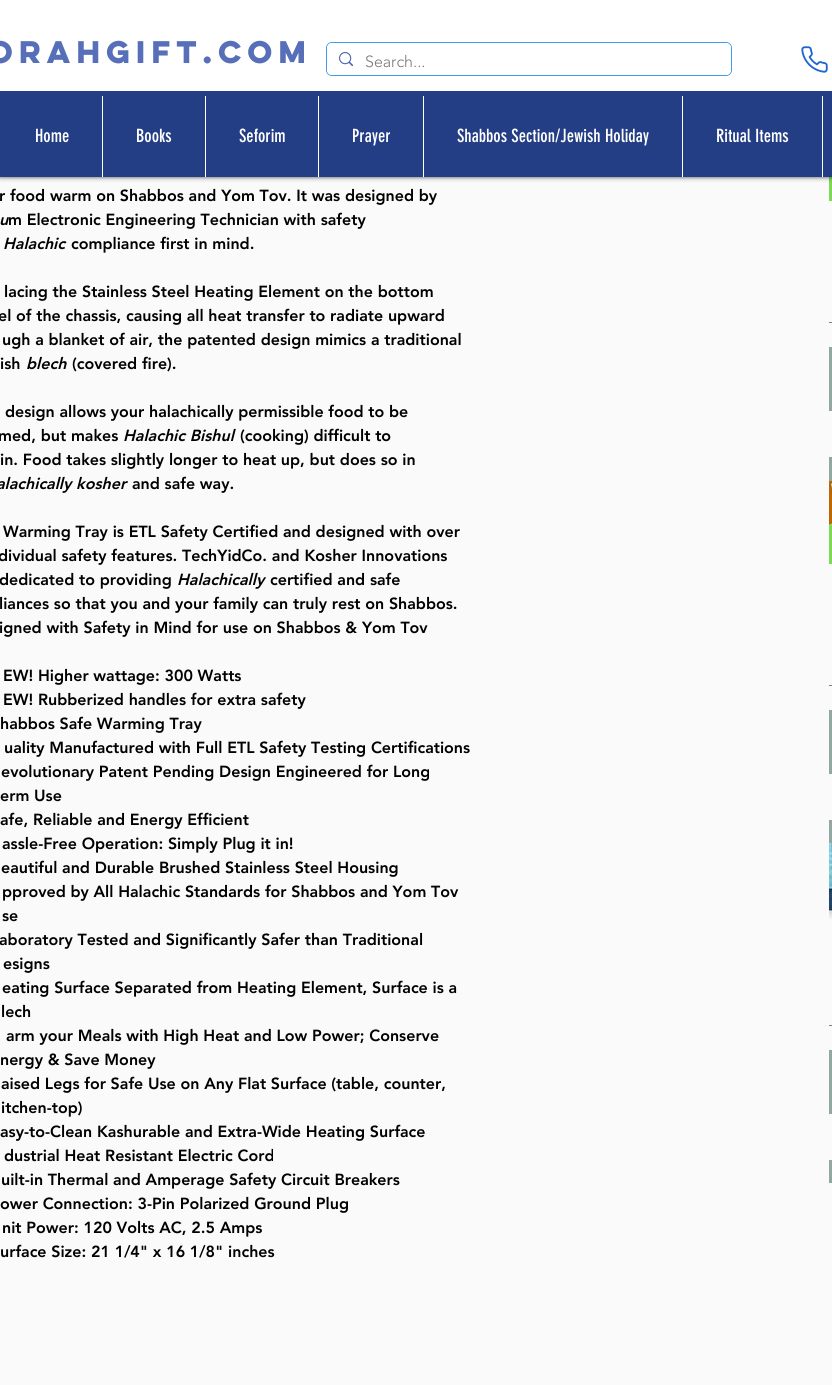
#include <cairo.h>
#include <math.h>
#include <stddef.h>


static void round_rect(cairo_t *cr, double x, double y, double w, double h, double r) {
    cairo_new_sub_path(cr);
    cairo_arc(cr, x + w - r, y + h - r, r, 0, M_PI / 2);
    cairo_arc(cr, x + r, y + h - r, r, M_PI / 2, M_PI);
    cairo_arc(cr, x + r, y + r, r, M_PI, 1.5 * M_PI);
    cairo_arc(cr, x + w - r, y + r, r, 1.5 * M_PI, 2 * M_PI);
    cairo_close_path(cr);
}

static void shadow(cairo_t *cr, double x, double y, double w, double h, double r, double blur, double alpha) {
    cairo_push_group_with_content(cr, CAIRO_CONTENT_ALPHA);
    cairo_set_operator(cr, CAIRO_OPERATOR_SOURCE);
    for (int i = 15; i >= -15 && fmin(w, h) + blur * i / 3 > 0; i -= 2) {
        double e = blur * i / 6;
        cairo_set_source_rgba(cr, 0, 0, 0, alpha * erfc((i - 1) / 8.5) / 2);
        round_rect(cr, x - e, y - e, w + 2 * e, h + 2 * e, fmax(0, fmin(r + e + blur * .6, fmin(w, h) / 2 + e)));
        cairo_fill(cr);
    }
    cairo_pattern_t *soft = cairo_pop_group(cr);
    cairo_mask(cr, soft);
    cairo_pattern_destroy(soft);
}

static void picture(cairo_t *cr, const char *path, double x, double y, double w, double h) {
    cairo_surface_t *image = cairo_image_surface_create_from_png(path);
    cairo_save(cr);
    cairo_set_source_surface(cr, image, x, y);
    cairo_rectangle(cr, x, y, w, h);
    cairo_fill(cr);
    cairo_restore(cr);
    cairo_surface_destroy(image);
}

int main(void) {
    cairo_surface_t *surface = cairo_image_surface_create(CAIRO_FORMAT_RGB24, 832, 1385);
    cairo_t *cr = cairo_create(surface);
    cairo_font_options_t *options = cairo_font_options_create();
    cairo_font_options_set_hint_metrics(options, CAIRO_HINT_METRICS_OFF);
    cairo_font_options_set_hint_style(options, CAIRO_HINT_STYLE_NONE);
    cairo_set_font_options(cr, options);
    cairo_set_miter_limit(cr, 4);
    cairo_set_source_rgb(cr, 0.98, 0.98, 0.98);
    cairo_paint(cr);
    picture(cr, "img3.png", 829, 177, 3, 24);
    cairo_set_source_rgb(cr, 0, 0, 0);
    shadow(cr, 0, 0, 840, 177, 0, 2.5, 0.7);
    cairo_set_source_rgb(cr, 1, 1, 1);
    cairo_rectangle(cr, 0, 0, 832, 91);
    cairo_fill(cr);
    cairo_select_font_face(cr, "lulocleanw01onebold", CAIRO_FONT_SLANT_NORMAL, CAIRO_FONT_WEIGHT_BOLD);
    cairo_set_font_size(cr, 28);
    cairo_set_source_rgb(cr, 0.337, 0.435, 0.722);
    cairo_move_to(cr, -12, 63);
    cairo_show_text(cr, "ORAHGIFT.com");
    round_rect(cr, 326.5, 42.5, 405, 33, 5.5);
    cairo_set_source_rgb(cr, 0.239, 0.608, 0.914);
    cairo_set_line_width(cr, 1);
    cairo_stroke(cr);
    cairo_set_source_rgb(cr, 1, 1, 1);
    round_rect(cr, 327, 43, 404, 32, 5);
    cairo_fill(cr);
    picture(cr, "img1.png", 339, 52, 14, 14);
    cairo_select_font_face(cr, "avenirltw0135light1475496 Light", CAIRO_FONT_SLANT_NORMAL, CAIRO_FONT_WEIGHT_NORMAL);
    cairo_set_font_size(cr, 16);
    cairo_set_source_rgb(cr, 0.471, 0.471, 0.471);
    cairo_move_to(cr, 365, 67);
    cairo_show_text(cr, "Search...");
    picture(cr, "img2.png", 801, 46, 27, 27);
    cairo_set_source_rgb(cr, 0.141, 0.243, 0.522);
    cairo_rectangle(cr, 0, 91, 832, 86);
    cairo_fill(cr);
    cairo_select_font_face(cr, "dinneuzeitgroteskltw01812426", CAIRO_FONT_SLANT_NORMAL, CAIRO_FONT_WEIGHT_NORMAL);
    cairo_set_font_size(cr, 18);
    cairo_set_source_rgb(cr, 1, 1, 1);
    cairo_move_to(cr, 35, 142);
    cairo_show_text(cr, "Home");
    cairo_rectangle(cr, 102, 96, 1, 81);
    cairo_fill(cr);
    cairo_move_to(cr, 136, 142);
    cairo_show_text(cr, "Books");
    cairo_rectangle(cr, 205, 96, 1, 81);
    cairo_fill(cr);
    cairo_move_to(cr, 239, 142);
    cairo_show_text(cr, "Seforim");
    cairo_rectangle(cr, 318, 96, 1, 81);
    cairo_fill(cr);
    cairo_move_to(cr, 352, 142);
    cairo_show_text(cr, "Prayer");
    cairo_rectangle(cr, 423, 96, 1, 81);
    cairo_fill(cr);
    cairo_move_to(cr, 457, 142);
    cairo_show_text(cr, "Shabbos Section/Jewish Holiday");
    cairo_rectangle(cr, 682, 96, 1, 81);
    cairo_fill(cr);
    cairo_move_to(cr, 716, 142);
    cairo_show_text(cr, "Ritual Items");
    cairo_rectangle(cr, 822, 96, 1, 81);
    cairo_fill(cr);
    cairo_select_font_face(cr, "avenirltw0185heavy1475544 Black", CAIRO_FONT_SLANT_NORMAL, CAIRO_FONT_WEIGHT_NORMAL);
    cairo_set_font_size(cr, 16);
    cairo_set_source_rgb(cr, 0, 0, 0);
    cairo_move_to(cr, -1, 201);
    cairo_show_text(cr, "r food warm on Shabbos and Yom Tov. It was designed by");
    cairo_select_font_face(cr, "avenirltw0185heavy1475544 Black", CAIRO_FONT_SLANT_ITALIC, CAIRO_FONT_WEIGHT_NORMAL);
    cairo_move_to(cr, -1, 225);
    cairo_show_text(cr, "u");
    cairo_select_font_face(cr, "avenirltw0185heavy1475544 Black", CAIRO_FONT_SLANT_NORMAL, CAIRO_FONT_WEIGHT_NORMAL);
    cairo_move_to(cr, 8, 225);
    cairo_show_text(cr, "m Electronic Engineering Technician with safety");
    cairo_select_font_face(cr, "avenirltw0185heavy1475544 Black", CAIRO_FONT_SLANT_ITALIC, CAIRO_FONT_WEIGHT_NORMAL);
    cairo_move_to(cr, 3, 249);
    cairo_show_text(cr, "Halachic");
    cairo_select_font_face(cr, "avenirltw0185heavy1475544 Black", CAIRO_FONT_SLANT_NORMAL, CAIRO_FONT_WEIGHT_NORMAL);
    cairo_move_to(cr, 71, 249);
    cairo_show_text(cr, "compliance first in mind.");
    cairo_move_to(cr, 4, 297);
    cairo_show_text(cr, "lacing the Stainless Steel Heating Element on the bottom");
    cairo_move_to(cr, -2, 321);
    cairo_show_text(cr, "el of the chassis, causing all heat transfer to radiate upward");
    cairo_move_to(cr, 2, 345);
    cairo_show_text(cr, "ugh a blanket of air, the patented design mimics a traditional");
    cairo_move_to(cr, 0, 369);
    cairo_show_text(cr, "ish");
    cairo_select_font_face(cr, "avenirltw0185heavy1475544 Black", CAIRO_FONT_SLANT_ITALIC, CAIRO_FONT_WEIGHT_NORMAL);
    cairo_move_to(cr, 26, 369);
    cairo_show_text(cr, "blech");
    cairo_select_font_face(cr, "avenirltw0185heavy1475544 Black", CAIRO_FONT_SLANT_NORMAL, CAIRO_FONT_WEIGHT_NORMAL);
    cairo_move_to(cr, 72, 369);
    cairo_show_text(cr, "(covered fire).");
    cairo_move_to(cr, 5, 417);
    cairo_show_text(cr, "design allows your halachically permissible food to be");
    cairo_move_to(cr, -2, 441);
    cairo_show_text(cr, "med, but makes");
    cairo_select_font_face(cr, "avenirltw0185heavy1475544 Black", CAIRO_FONT_SLANT_ITALIC, CAIRO_FONT_WEIGHT_NORMAL);
    cairo_move_to(cr, 123, 441);
    cairo_show_text(cr, "Halachic Bishul");
    cairo_select_font_face(cr, "avenirltw0185heavy1475544 Black", CAIRO_FONT_SLANT_NORMAL, CAIRO_FONT_WEIGHT_NORMAL);
    cairo_move_to(cr, 240, 441);
    cairo_show_text(cr, "(cooking) difficult to");
    cairo_move_to(cr, 0, 465);
    cairo_show_text(cr, "in. Food takes slightly longer to heat up, but does so in");
    cairo_select_font_face(cr, "avenirltw0185heavy1475544 Black", CAIRO_FONT_SLANT_ITALIC, CAIRO_FONT_WEIGHT_NORMAL);
    cairo_move_to(cr, -4, 489);
    cairo_show_text(cr, "alachically kosher");
    cairo_select_font_face(cr, "avenirltw0185heavy1475544 Black", CAIRO_FONT_SLANT_NORMAL, CAIRO_FONT_WEIGHT_NORMAL);
    cairo_move_to(cr, 132, 489);
    cairo_show_text(cr, "and safe way.");
    cairo_move_to(cr, 3, 537);
    cairo_show_text(cr, "Warming Tray is ETL Safety Certified and designed with over");
    cairo_move_to(cr, -2, 561);
    cairo_show_text(cr, "dividual safety features. TechYidCo. and Kosher Innovations");
    cairo_move_to(cr, -1, 585);
    cairo_show_text(cr, "dedicated to providing");
    cairo_select_font_face(cr, "avenirltw0185heavy1475544 Black", CAIRO_FONT_SLANT_ITALIC, CAIRO_FONT_WEIGHT_NORMAL);
    cairo_move_to(cr, 177, 585);
    cairo_show_text(cr, "Halachically");
    cairo_select_font_face(cr, "avenirltw0185heavy1475544 Black", CAIRO_FONT_SLANT_NORMAL, CAIRO_FONT_WEIGHT_NORMAL);
    cairo_move_to(cr, 270, 585);
    cairo_show_text(cr, "certified and safe");
    cairo_move_to(cr, -1, 609);
    cairo_show_text(cr, "liances so that you and your family can truly rest on Shabbos.");
    cairo_move_to(cr, -1, 633);
    cairo_show_text(cr, "igned with Safety in Mind for use on Shabbos & Yom Tov");
    cairo_move_to(cr, 3, 681);
    cairo_show_text(cr, "EW! Higher wattage: 300 Watts");
    cairo_move_to(cr, 3, 705);
    cairo_show_text(cr, "EW! Rubberized handles for extra safety");
    cairo_move_to(cr, 0, 729);
    cairo_show_text(cr, "habbos Safe Warming Tray");
    cairo_move_to(cr, 4, 753);
    cairo_show_text(cr, "uality Manufactured with Full ETL Safety Testing Certifications");
    cairo_move_to(cr, 1, 777);
    cairo_show_text(cr, "evolutionary Patent Pending Design Engineered for Long");
    cairo_move_to(cr, 0, 801);
    cairo_show_text(cr, "erm Use");
    cairo_move_to(cr, 0, 825);
    cairo_show_text(cr, "afe, Reliable and Energy Efficient");
    cairo_move_to(cr, 2, 849);
    cairo_show_text(cr, "assle-Free Operation: Simply Plug it in!");
    cairo_move_to(cr, 1, 873);
    cairo_show_text(cr, "eautiful and Durable Brushed Stainless Steel Housing");
    cairo_move_to(cr, 2, 897);
    cairo_show_text(cr, "pproved by All Halachic Standards for Shabbos and Yom Tov");
    cairo_move_to(cr, 2, 921);
    cairo_show_text(cr, "se");
    cairo_move_to(cr, -1, 945);
    cairo_show_text(cr, "aboratory Tested and Significantly Safer than Traditional");
    cairo_move_to(cr, 3, 969);
    cairo_show_text(cr, "esigns");
    cairo_move_to(cr, 2, 993);
    cairo_show_text(cr, "eating Surface Separated from Heating Element, Surface is a");
    cairo_move_to(cr, 1, 1017);
    cairo_show_text(cr, "lech");
    cairo_move_to(cr, 6, 1041);
    cairo_show_text(cr, "arm your Meals with High Heat and Low Power; Conserve");
    cairo_move_to(cr, 0, 1065);
    cairo_show_text(cr, "nergy & Save Money");
    cairo_move_to(cr, 1, 1089);
    cairo_show_text(cr, "aised Legs for Safe Use on Any Flat Surface (table, counter,");
    cairo_move_to(cr, 1, 1113);
    cairo_show_text(cr, "itchen-top)");
    cairo_move_to(cr, 0, 1137);
    cairo_show_text(cr, "asy-to-Clean Kashurable and Extra-Wide Heating Surface");
    cairo_move_to(cr, 4, 1161);
    cairo_show_text(cr, "dustrial Heat Resistant Electric Cord");
    cairo_move_to(cr, 1, 1185);
    cairo_show_text(cr, "uilt-in Thermal and Amperage Safety Circuit Breakers");
    cairo_move_to(cr, 0, 1209);
    cairo_show_text(cr, "ower Connection: 3-Pin Polarized Ground Plug");
    cairo_move_to(cr, 2, 1233);
    cairo_show_text(cr, "nit Power: 120 Volts AC, 2.5 Amps");
    cairo_move_to(cr, 0, 1257);
    cairo_show_text(cr, "urface Size: 21 1/4\" x 16 1/8\" inches");
    cairo_set_source_rgb(cr, 0.447, 0.522, 0.549);
    cairo_rectangle(cr, 829, 322, 3, 1);
    cairo_fill(cr);
    cairo_set_source_rgb(cr, 0.573, 0.651, 0.635);
    cairo_rectangle(cr, 829, 347, 3, 64);
    cairo_fill(cr);
    cairo_rectangle(cr, 829, 457, 3, 24);
    cairo_fill(cr);
    picture(cr, "img4.png", 829, 481, 3, 83);
    cairo_set_source_rgb(cr, 0.447, 0.522, 0.549);
    cairo_rectangle(cr, 829, 685, 3, 1);
    cairo_fill(cr);
    cairo_set_source_rgb(cr, 0.573, 0.651, 0.635);
    cairo_rectangle(cr, 829, 710, 3, 64);
    cairo_fill(cr);
    cairo_rectangle(cr, 829, 820, 3, 23);
    cairo_fill(cr);
    picture(cr, "img5.png", 829, 843, 3, 76);
    cairo_set_source_rgb(cr, 0.447, 0.522, 0.549);
    cairo_rectangle(cr, 829, 1025, 3, 1);
    cairo_fill(cr);
    cairo_set_source_rgb(cr, 0.573, 0.651, 0.635);
    cairo_rectangle(cr, 829, 1050, 3, 64);
    cairo_fill(cr);
    cairo_rectangle(cr, 829, 1160, 3, 23);
    cairo_fill(cr);
    cairo_surface_write_to_png(surface, "page.png");
    cairo_font_options_destroy(options);
    cairo_destroy(cr);
    cairo_surface_destroy(surface);
    return 0;
}
